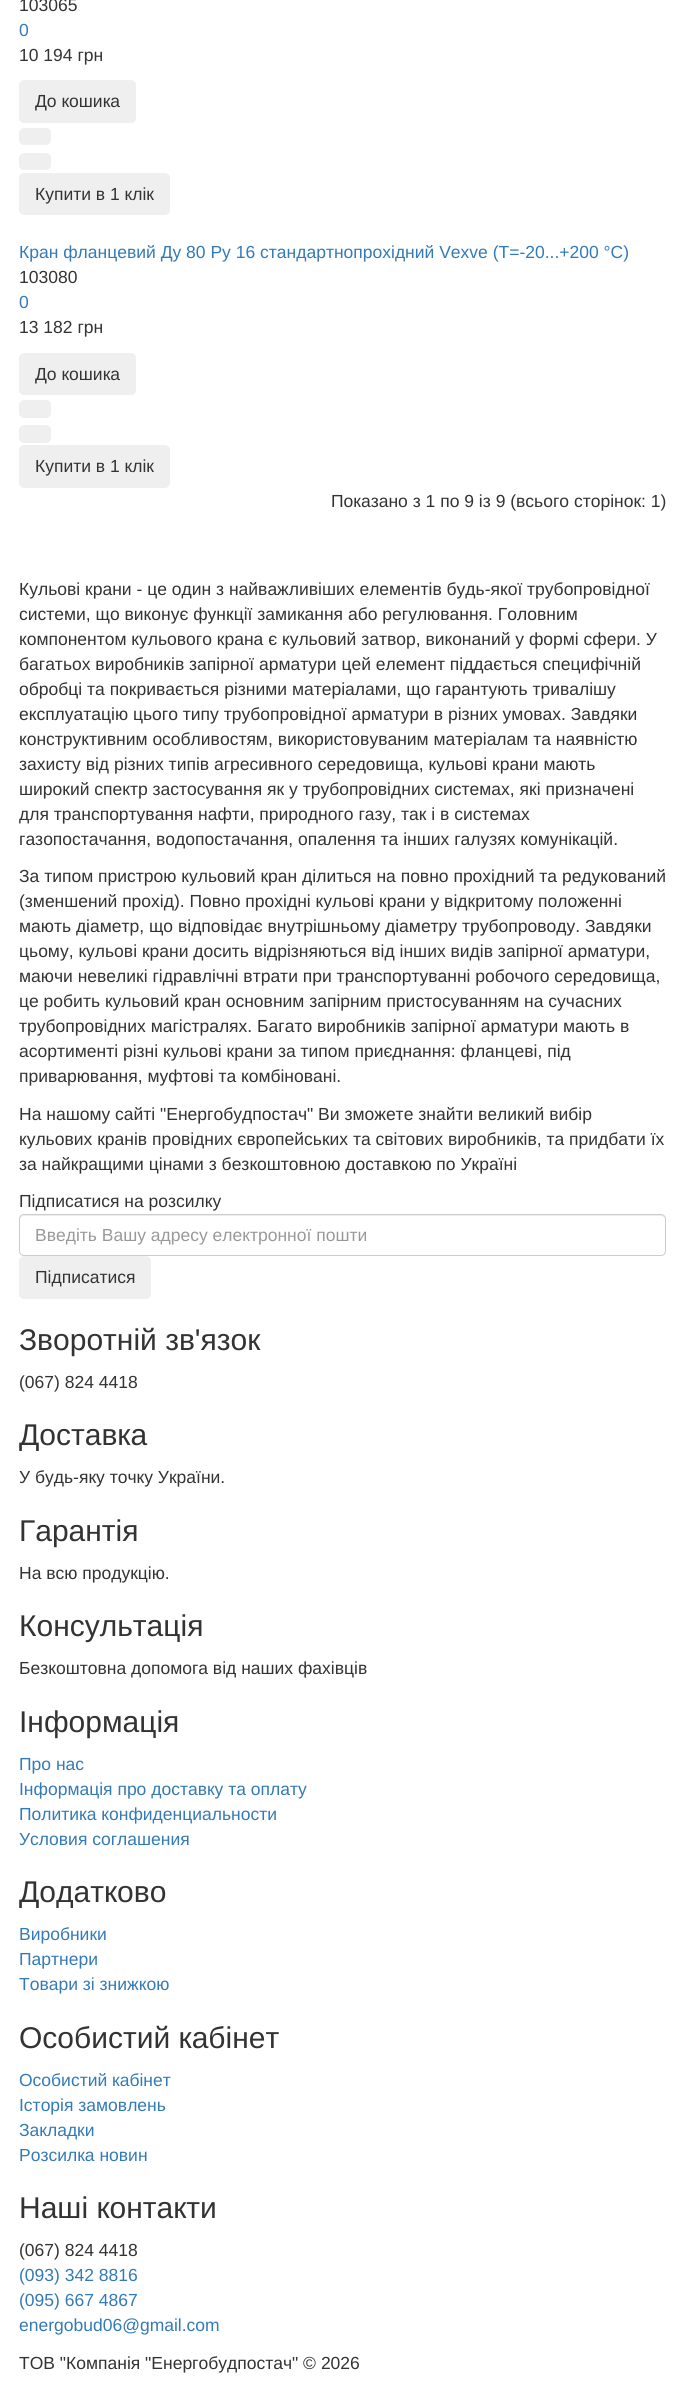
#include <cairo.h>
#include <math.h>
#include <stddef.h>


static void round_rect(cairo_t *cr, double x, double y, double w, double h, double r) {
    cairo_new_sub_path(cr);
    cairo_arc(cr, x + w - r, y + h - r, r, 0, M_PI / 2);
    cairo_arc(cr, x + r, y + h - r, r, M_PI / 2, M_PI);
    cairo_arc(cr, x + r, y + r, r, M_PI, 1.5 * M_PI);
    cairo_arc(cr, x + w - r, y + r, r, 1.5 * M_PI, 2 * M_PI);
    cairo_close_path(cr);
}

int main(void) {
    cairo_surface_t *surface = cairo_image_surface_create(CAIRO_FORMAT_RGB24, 685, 2387);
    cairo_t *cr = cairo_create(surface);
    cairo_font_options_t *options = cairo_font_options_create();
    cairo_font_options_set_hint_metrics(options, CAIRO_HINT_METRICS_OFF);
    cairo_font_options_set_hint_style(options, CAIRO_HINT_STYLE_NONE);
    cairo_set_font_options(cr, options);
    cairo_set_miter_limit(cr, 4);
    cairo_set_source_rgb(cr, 1, 1, 1);
    cairo_paint(cr);
    cairo_select_font_face(cr, "Liberation Sans", CAIRO_FONT_SLANT_NORMAL, CAIRO_FONT_WEIGHT_NORMAL);
    cairo_set_font_size(cr, 17.5);
    cairo_set_source_rgb(cr, 0.2, 0.2, 0.2);
    cairo_move_to(cr, 19, 11);
    cairo_show_text(cr, "103065");
    cairo_set_source_rgb(cr, 0.2, 0.478, 0.718);
    cairo_move_to(cr, 19, 36);
    cairo_show_text(cr, "0");
    cairo_set_source_rgb(cr, 0.2, 0.2, 0.2);
    cairo_move_to(cr, 19, 61);
    cairo_show_text(cr, "10 194 грн");
    cairo_set_source_rgb(cr, 0.937, 0.937, 0.937);
    round_rect(cr, 19, 80, 117, 43, 5);
    cairo_fill(cr);
    cairo_set_source_rgb(cr, 0.2, 0.2, 0.2);
    cairo_move_to(cr, 35, 107);
    cairo_show_text(cr, "До кошика");
    cairo_set_source_rgb(cr, 0.937, 0.937, 0.937);
    round_rect(cr, 19, 128, 32, 17, 5);
    cairo_fill(cr);
    round_rect(cr, 19, 153, 32, 17, 5);
    cairo_fill(cr);
    round_rect(cr, 19, 173, 151, 42, 5);
    cairo_fill(cr);
    cairo_set_source_rgb(cr, 0.2, 0.2, 0.2);
    cairo_move_to(cr, 35, 200);
    cairo_show_text(cr, "Купити в 1 клік");
    cairo_set_source_rgb(cr, 0.2, 0.478, 0.718);
    cairo_move_to(cr, 19, 258);
    cairo_show_text(cr, "Кран фланцевий Ду 80 Ру 16 стандартнопрохідний Vexve (Т=-20...+200 °С)");
    cairo_set_source_rgb(cr, 0.2, 0.2, 0.2);
    cairo_move_to(cr, 19, 283);
    cairo_show_text(cr, "103080");
    cairo_set_source_rgb(cr, 0.2, 0.478, 0.718);
    cairo_move_to(cr, 19, 308);
    cairo_show_text(cr, "0");
    cairo_set_source_rgb(cr, 0.2, 0.2, 0.2);
    cairo_move_to(cr, 19, 333);
    cairo_show_text(cr, "13 182 грн");
    cairo_set_source_rgb(cr, 0.937, 0.937, 0.937);
    round_rect(cr, 19, 353, 117, 42, 5);
    cairo_fill(cr);
    cairo_set_source_rgb(cr, 0.2, 0.2, 0.2);
    cairo_move_to(cr, 35, 380);
    cairo_show_text(cr, "До кошика");
    cairo_set_source_rgb(cr, 0.937, 0.937, 0.937);
    round_rect(cr, 19, 400, 32, 18, 5);
    cairo_fill(cr);
    round_rect(cr, 19, 425, 32, 18, 5);
    cairo_fill(cr);
    round_rect(cr, 19, 445, 151, 43, 5);
    cairo_fill(cr);
    cairo_set_source_rgb(cr, 0.2, 0.2, 0.2);
    cairo_move_to(cr, 35, 472);
    cairo_show_text(cr, "Купити в 1 клік");
    cairo_move_to(cr, 331, 507);
    cairo_show_text(cr, "Показано з 1 по 9 із 9 (всього сторінок: 1)");
    cairo_move_to(cr, 19, 595);
    cairo_show_text(cr, "Кульові крани - це один з найважливіших елементів будь-якої трубопровідної");
    cairo_move_to(cr, 19, 620);
    cairo_show_text(cr, "системи, що виконує функції замикання або регулювання. Головним");
    cairo_move_to(cr, 19, 645);
    cairo_show_text(cr, "компонентом кульового крана є кульовий затвор, виконаний у формі сфери. У");
    cairo_move_to(cr, 19, 670);
    cairo_show_text(cr, "багатьох виробників запірної арматури цей елемент піддається специфічній");
    cairo_move_to(cr, 19, 695);
    cairo_show_text(cr, "обробці та покривається різними матеріалами, що гарантують тривалішу");
    cairo_move_to(cr, 19, 720);
    cairo_show_text(cr, "експлуатацію цього типу трубопровідної арматури в різних умовах. Завдяки");
    cairo_move_to(cr, 19, 745);
    cairo_show_text(cr, "конструктивним особливостям, використовуваним матеріалам та наявністю");
    cairo_move_to(cr, 19, 770);
    cairo_show_text(cr, "захисту від різних типів агресивного середовища, кульові крани мають");
    cairo_move_to(cr, 19, 795);
    cairo_show_text(cr, "широкий спектр застосування як у трубопровідних системах, які призначені");
    cairo_move_to(cr, 19, 820);
    cairo_show_text(cr, "для транспортування нафти, природного газу, так і в системах");
    cairo_move_to(cr, 19, 845);
    cairo_show_text(cr, "газопостачання, водопостачання, опалення та інших галузях комунікацій.");
    cairo_move_to(cr, 19, 882);
    cairo_show_text(cr, "За типом пристрою кульовий кран ділиться на повно прохідний та редукований");
    cairo_move_to(cr, 19, 907);
    cairo_show_text(cr, "(зменшений прохід). Повно прохідні кульові крани у відкритому положенні");
    cairo_move_to(cr, 19, 932);
    cairo_show_text(cr, "мають діаметр, що відповідає внутрішньому діаметру трубопроводу. Завдяки");
    cairo_move_to(cr, 19, 957);
    cairo_show_text(cr, "цьому, кульові крани досить відрізняються від інших видів запірної арматури,");
    cairo_move_to(cr, 19, 982);
    cairo_show_text(cr, "маючи невеликі гідравлічні втрати при транспортуванні робочого середовища,");
    cairo_move_to(cr, 19, 1007);
    cairo_show_text(cr, "це робить кульовий кран основним запірним пристосуванням на сучасних");
    cairo_move_to(cr, 19, 1032);
    cairo_show_text(cr, "трубопровідних магістралях. Багато виробників запірної арматури мають в");
    cairo_move_to(cr, 19, 1057);
    cairo_show_text(cr, "асортименті різні кульові крани за типом приєднання: фланцеві, під");
    cairo_move_to(cr, 19, 1082);
    cairo_show_text(cr, "приварювання, муфтові та комбіновані.");
    cairo_move_to(cr, 19, 1120);
    cairo_show_text(cr, "На нашому сайті \"Енергобудпостач\" Ви зможете знайти великий вибір");
    cairo_move_to(cr, 19, 1145);
    cairo_show_text(cr, "кульових кранів провідних європейських та світових виробників, та придбати їх");
    cairo_move_to(cr, 19, 1170);
    cairo_show_text(cr, "за найкращими цінами з безкоштовною доставкою по Україні");
    cairo_move_to(cr, 19, 1207);
    cairo_show_text(cr, "Підписатися на розсилку");
    cairo_set_source_rgb(cr, 0.925, 0.925, 0.925);
    cairo_new_path(cr);
    cairo_move_to(cr, 24, 1216);
    cairo_line_to(cr, 661, 1216);
    cairo_curve_to(cr, 663, 1216, 665, 1218, 665, 1220);
    cairo_curve_to(cr, 665, 1217, 664, 1215, 661, 1215);
    cairo_line_to(cr, 24, 1215);
    cairo_curve_to(cr, 21, 1215, 20, 1217, 20, 1220);
    cairo_curve_to(cr, 20, 1218, 22, 1216, 24, 1216);
    cairo_close_path(cr);
    cairo_fill(cr);
    round_rect(cr, 19.5, 1214.5, 646, 41, 4.5);
    cairo_set_source_rgb(cr, 0.8, 0.8, 0.8);
    cairo_set_line_width(cr, 1);
    cairo_stroke(cr);
    cairo_set_source_rgb(cr, 0.6, 0.6, 0.6);
    cairo_move_to(cr, 35, 1241);
    cairo_show_text(cr, "Введіть Вашу адресу електронної пошти");
    cairo_set_source_rgb(cr, 0.937, 0.937, 0.937);
    round_rect(cr, 19, 1256, 132, 43, 5);
    cairo_fill(cr);
    cairo_set_source_rgb(cr, 0.2, 0.2, 0.2);
    cairo_move_to(cr, 35, 1283);
    cairo_show_text(cr, "Підписатися");
    cairo_set_font_size(cr, 30);
    cairo_move_to(cr, 19, 1350);
    cairo_show_text(cr, "Зворотній зв'язок");
    cairo_set_font_size(cr, 17.5);
    cairo_move_to(cr, 19, 1388);
    cairo_show_text(cr, "(067) 824 4418");
    cairo_set_font_size(cr, 30);
    cairo_move_to(cr, 19, 1445);
    cairo_show_text(cr, "Доставка");
    cairo_set_font_size(cr, 17.5);
    cairo_move_to(cr, 19, 1483);
    cairo_show_text(cr, "У будь-яку точку України.");
    cairo_set_font_size(cr, 30);
    cairo_move_to(cr, 19, 1541);
    cairo_show_text(cr, "Гарантія");
    cairo_set_font_size(cr, 17.5);
    cairo_move_to(cr, 19, 1579);
    cairo_show_text(cr, "На всю продукцію.");
    cairo_set_font_size(cr, 30);
    cairo_move_to(cr, 19, 1636);
    cairo_show_text(cr, "Консультація");
    cairo_set_font_size(cr, 17.5);
    cairo_move_to(cr, 19, 1674);
    cairo_show_text(cr, "Безкоштовна допомога від наших фахівців");
    cairo_set_font_size(cr, 30);
    cairo_move_to(cr, 19, 1732);
    cairo_show_text(cr, "Інформація");
    cairo_set_font_size(cr, 17.5);
    cairo_set_source_rgb(cr, 0.2, 0.478, 0.718);
    cairo_move_to(cr, 19, 1770);
    cairo_show_text(cr, "Про нас");
    cairo_move_to(cr, 19, 1795);
    cairo_show_text(cr, "Інформація про доставку та оплату");
    cairo_move_to(cr, 19, 1820);
    cairo_show_text(cr, "Политика конфиденциальности");
    cairo_move_to(cr, 19, 1845);
    cairo_show_text(cr, "Условия соглашения");
    cairo_set_font_size(cr, 30);
    cairo_set_source_rgb(cr, 0.2, 0.2, 0.2);
    cairo_move_to(cr, 19, 1902);
    cairo_show_text(cr, "Додатково");
    cairo_set_font_size(cr, 17.5);
    cairo_set_source_rgb(cr, 0.2, 0.478, 0.718);
    cairo_move_to(cr, 19, 1940);
    cairo_show_text(cr, "Виробники");
    cairo_move_to(cr, 19, 1965);
    cairo_show_text(cr, "Партнери");
    cairo_move_to(cr, 19, 1990);
    cairo_show_text(cr, "Товари зі знижкою");
    cairo_set_font_size(cr, 30);
    cairo_set_source_rgb(cr, 0.2, 0.2, 0.2);
    cairo_move_to(cr, 19, 2048);
    cairo_show_text(cr, "Особистий кабінет");
    cairo_set_font_size(cr, 17.5);
    cairo_set_source_rgb(cr, 0.2, 0.478, 0.718);
    cairo_move_to(cr, 19, 2086);
    cairo_show_text(cr, "Особистий кабінет");
    cairo_move_to(cr, 19, 2111);
    cairo_show_text(cr, "Історія замовлень");
    cairo_move_to(cr, 19, 2136);
    cairo_show_text(cr, "Закладки");
    cairo_move_to(cr, 19, 2161);
    cairo_show_text(cr, "Розсилка новин");
    cairo_set_font_size(cr, 30);
    cairo_set_source_rgb(cr, 0.2, 0.2, 0.2);
    cairo_move_to(cr, 19, 2218);
    cairo_show_text(cr, "Наші контакти");
    cairo_set_font_size(cr, 17.5);
    cairo_move_to(cr, 19, 2256);
    cairo_show_text(cr, "(067) 824 4418");
    cairo_set_source_rgb(cr, 0.2, 0.478, 0.718);
    cairo_move_to(cr, 19, 2281);
    cairo_show_text(cr, "(093) 342 8816");
    cairo_move_to(cr, 19, 2306);
    cairo_show_text(cr, "(095) 667 4867");
    cairo_move_to(cr, 19, 2331);
    cairo_show_text(cr, "energobud06@gmail.com");
    cairo_set_source_rgb(cr, 0.2, 0.2, 0.2);
    cairo_move_to(cr, 19, 2369);
    cairo_show_text(cr, "ТОВ \"Компанія \"Енергобудпостач\" © 2026");
    cairo_surface_write_to_png(surface, "page.png");
    cairo_font_options_destroy(options);
    cairo_destroy(cr);
    cairo_surface_destroy(surface);
    return 0;
}
